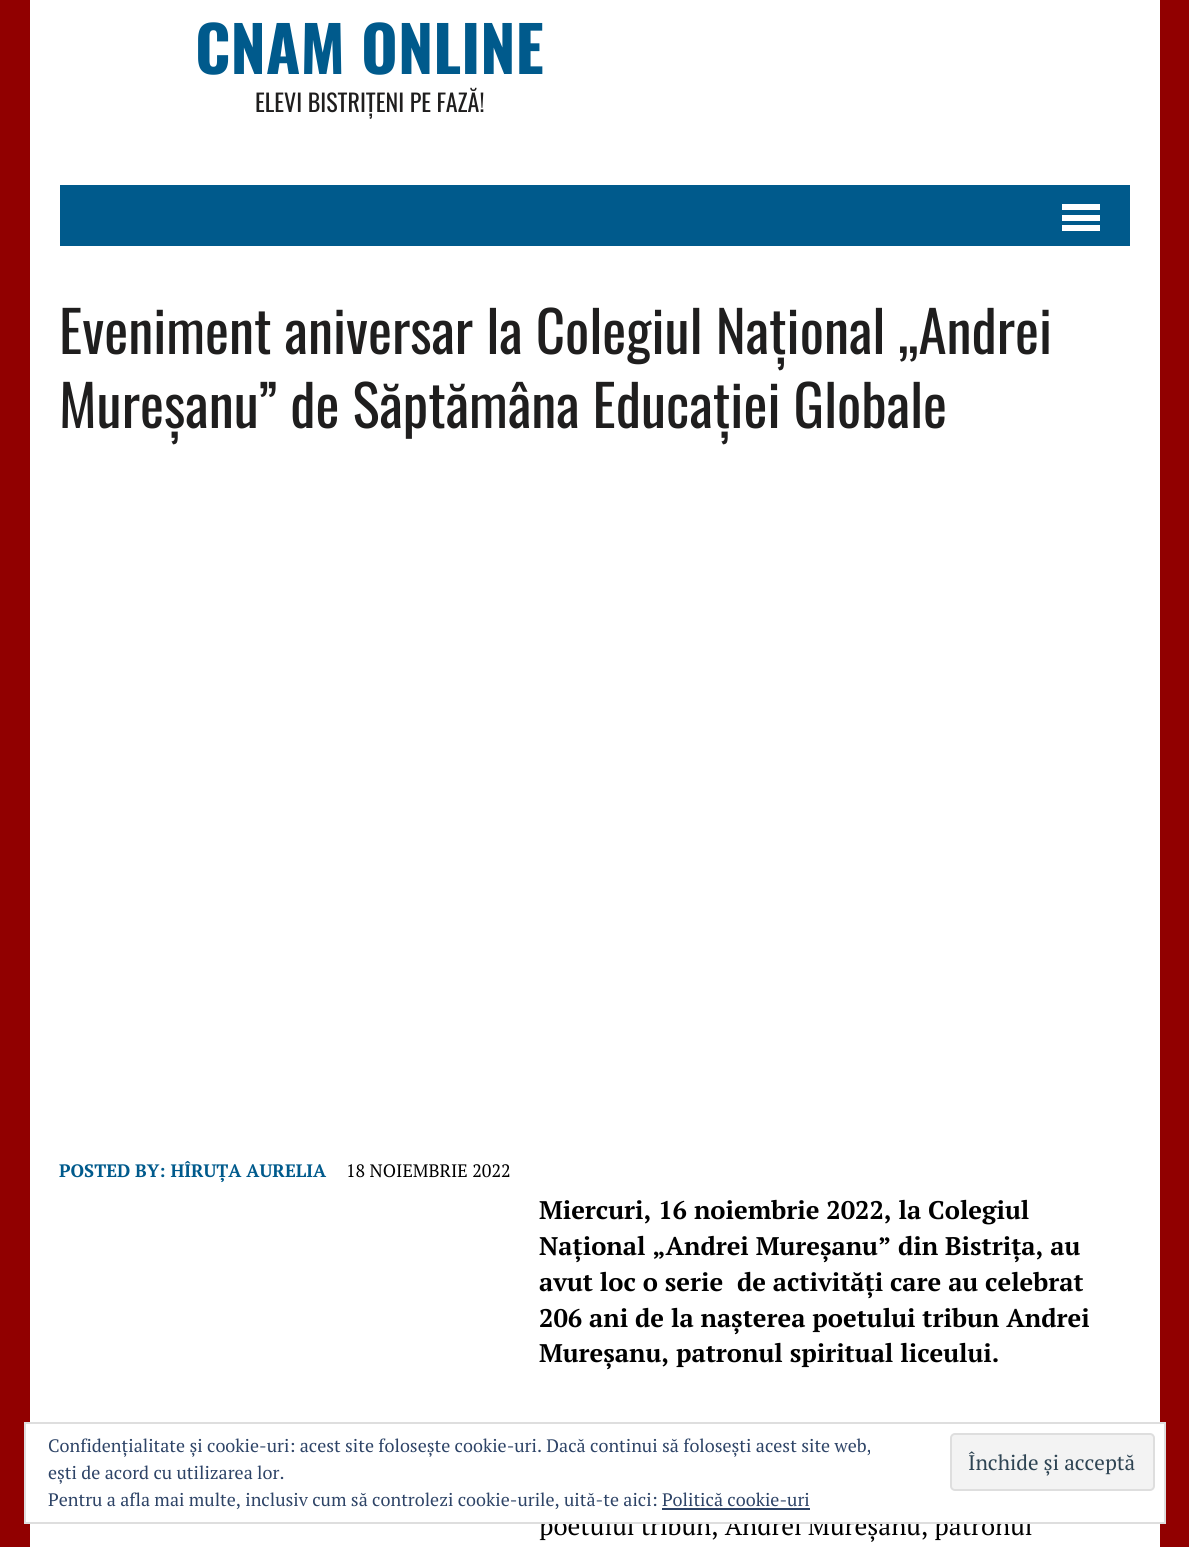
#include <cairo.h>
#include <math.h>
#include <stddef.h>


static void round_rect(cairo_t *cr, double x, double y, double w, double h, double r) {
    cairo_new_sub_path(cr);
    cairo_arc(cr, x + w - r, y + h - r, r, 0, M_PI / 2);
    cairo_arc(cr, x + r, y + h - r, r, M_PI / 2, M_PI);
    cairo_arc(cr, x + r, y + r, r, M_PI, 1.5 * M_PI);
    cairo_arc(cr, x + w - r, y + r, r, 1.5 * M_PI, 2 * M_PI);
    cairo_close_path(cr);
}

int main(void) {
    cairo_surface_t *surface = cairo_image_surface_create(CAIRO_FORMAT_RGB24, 1189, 1547);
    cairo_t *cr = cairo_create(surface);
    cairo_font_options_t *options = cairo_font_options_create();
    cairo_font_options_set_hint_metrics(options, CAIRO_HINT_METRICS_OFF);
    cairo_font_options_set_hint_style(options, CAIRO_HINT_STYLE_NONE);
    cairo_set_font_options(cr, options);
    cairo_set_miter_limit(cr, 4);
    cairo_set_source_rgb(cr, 0.569, 0, 0);
    cairo_paint(cr);
    cairo_set_source_rgb(cr, 1, 1, 1);
    cairo_rectangle(cr, 30, 0, 1130, 1547);
    cairo_fill(cr);
    cairo_select_font_face(cr, "Oswald", CAIRO_FONT_SLANT_NORMAL, CAIRO_FONT_WEIGHT_BOLD);
    cairo_set_font_size(cr, 63);
    cairo_set_source_rgb(cr, 0, 0.353, 0.549);
    cairo_move_to(cr, 195, 74);
    cairo_show_text(cr, "CNAM ONLINE");
    cairo_select_font_face(cr, "Oswald", CAIRO_FONT_SLANT_NORMAL, CAIRO_FONT_WEIGHT_NORMAL);
    cairo_set_font_size(cr, 24);
    cairo_set_source_rgb(cr, 0.122, 0.118, 0.118);
    cairo_move_to(cr, 255, 112);
    cairo_show_text(cr, "ELEVI BISTRIȚENI PE FAZĂ!");
    cairo_set_source_rgb(cr, 0, 0.353, 0.549);
    cairo_rectangle(cr, 60, 185, 1070, 61);
    cairo_fill(cr);
    cairo_set_source_rgb(cr, 1, 1, 1);
    cairo_rectangle(cr, 1062, 204, 38, 6);
    cairo_fill(cr);
    cairo_rectangle(cr, 1062, 215, 38, 6);
    cairo_fill(cr);
    cairo_rectangle(cr, 1062, 225, 38, 6);
    cairo_fill(cr);
    cairo_set_font_size(cr, 57);
    cairo_set_source_rgb(cr, 0.122, 0.118, 0.118);
    cairo_move_to(cr, 59, 354);
    cairo_show_text(cr, "Eveniment aniversar la Colegiul Național „Andrei");
    cairo_move_to(cr, 59, 428);
    cairo_show_text(cr, "Mureșanu” de Săptămâna Educației Globale");
    cairo_select_font_face(cr, "PT Serif", CAIRO_FONT_SLANT_NORMAL, CAIRO_FONT_WEIGHT_BOLD);
    cairo_set_font_size(cr, 18);
    cairo_set_source_rgb(cr, 0, 0.353, 0.549);
    cairo_move_to(cr, 59, 1177);
    cairo_show_text(cr, "POSTED BY: HÎRUȚA AURELIA");
    cairo_select_font_face(cr, "PT Serif", CAIRO_FONT_SLANT_NORMAL, CAIRO_FONT_WEIGHT_NORMAL);
    cairo_set_source_rgb(cr, 0, 0, 0);
    cairo_move_to(cr, 346, 1177);
    cairo_show_text(cr, "18 NOIEMBRIE 2022");
    cairo_select_font_face(cr, "PT Serif", CAIRO_FONT_SLANT_NORMAL, CAIRO_FONT_WEIGHT_BOLD);
    cairo_set_font_size(cr, 25.5);
    cairo_move_to(cr, 539, 1219);
    cairo_show_text(cr, "Miercuri, 16 noiembrie 2022, la Colegiul");
    cairo_move_to(cr, 539, 1255);
    cairo_show_text(cr, "Național „Andrei Mureșanu” din Bistrița, au");
    cairo_move_to(cr, 539, 1291);
    cairo_show_text(cr, "avut loc o serie  de activități care au celebrat");
    cairo_move_to(cr, 539, 1327);
    cairo_show_text(cr, "206 ani de la nașterea poetului tribun Andrei");
    cairo_move_to(cr, 539, 1362);
    cairo_show_text(cr, "Mureșanu, patronul spiritual liceului.");
    cairo_select_font_face(cr, "PT Serif", CAIRO_FONT_SLANT_NORMAL, CAIRO_FONT_WEIGHT_NORMAL);
    cairo_move_to(cr, 539, 1535);
    cairo_show_text(cr, "poetului tribun, Andrei Mureșanu, patronul");
    cairo_set_source_rgb(cr, 1, 1, 1);
    cairo_rectangle(cr, 25, 1423, 1140, 100);
    cairo_fill_preserve(cr);
    cairo_set_source_rgb(cr, 0.871, 0.871, 0.871);
    cairo_stroke(cr);
    cairo_set_font_size(cr, 18);
    cairo_set_source_rgb(cr, 0.18, 0.267, 0.404);
    cairo_move_to(cr, 48, 1452);
    cairo_show_text(cr, "Confidențialitate și cookie-uri: acest site folosește cookie-uri. Dacă continui să folosești acest site web,");
    cairo_move_to(cr, 48, 1479);
    cairo_show_text(cr, "ești de acord cu utilizarea lor.");
    cairo_set_source_rgb(cr, 0.953, 0.953, 0.953);
    round_rect(cr, 951, 1434, 203, 56, 4);
    cairo_fill_preserve(cr);
    cairo_set_source_rgb(cr, 0.871, 0.871, 0.871);
    cairo_stroke(cr);
    cairo_set_font_size(cr, 21);
    cairo_set_source_rgb(cr, 0.18, 0.267, 0.325);
    cairo_move_to(cr, 968, 1470);
    cairo_show_text(cr, "Închide și acceptă");
    cairo_set_font_size(cr, 18);
    cairo_set_source_rgb(cr, 0.18, 0.267, 0.404);
    cairo_move_to(cr, 48, 1506);
    cairo_show_text(cr, "Pentru a afla mai multe, inclusiv cum să controlezi cookie-urile, uită-te aici: Politică cookie-uri");
    cairo_rectangle(cr, 662, 1508, 148, 2);
    cairo_fill(cr);
    cairo_surface_write_to_png(surface, "page.png");
    cairo_font_options_destroy(options);
    cairo_destroy(cr);
    cairo_surface_destroy(surface);
    return 0;
}
